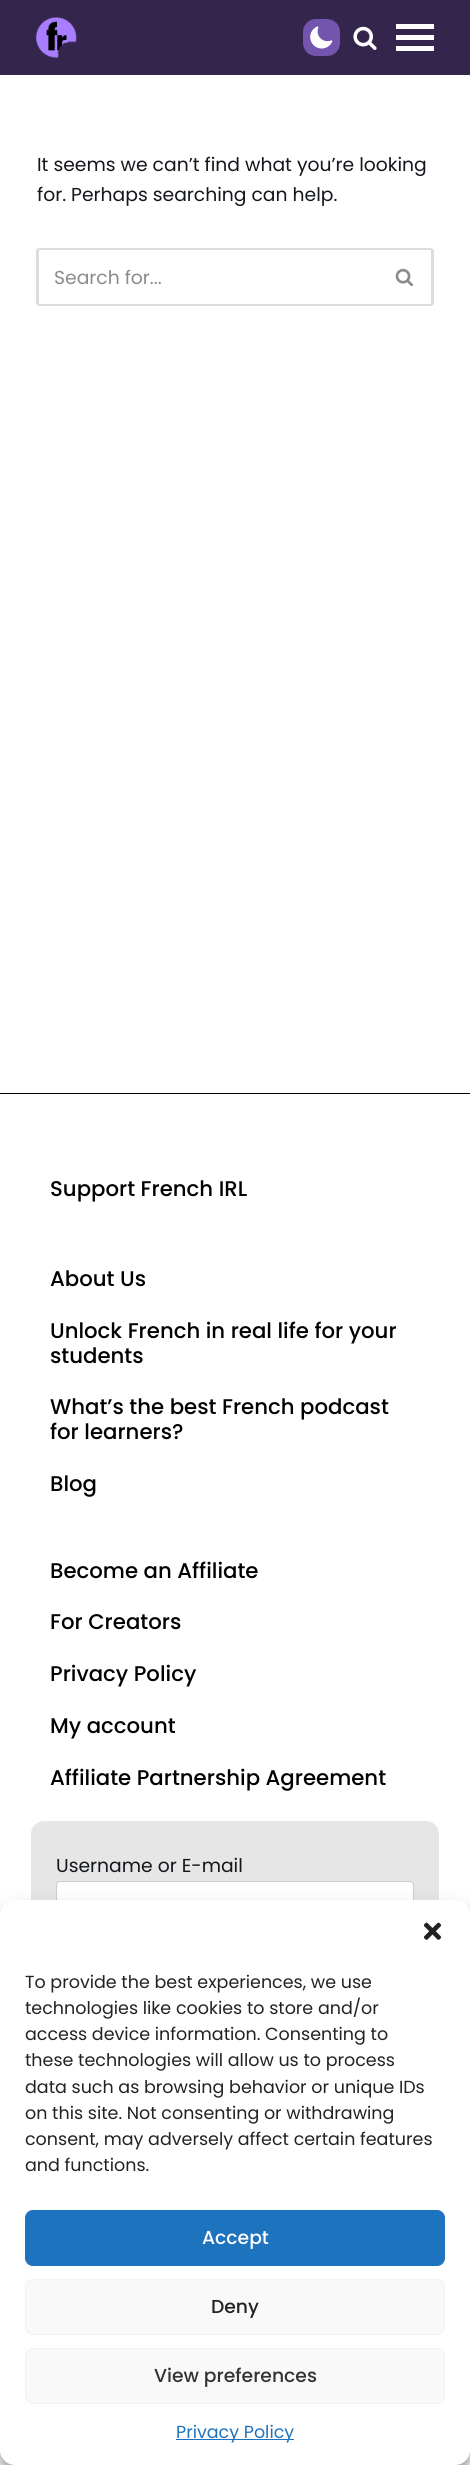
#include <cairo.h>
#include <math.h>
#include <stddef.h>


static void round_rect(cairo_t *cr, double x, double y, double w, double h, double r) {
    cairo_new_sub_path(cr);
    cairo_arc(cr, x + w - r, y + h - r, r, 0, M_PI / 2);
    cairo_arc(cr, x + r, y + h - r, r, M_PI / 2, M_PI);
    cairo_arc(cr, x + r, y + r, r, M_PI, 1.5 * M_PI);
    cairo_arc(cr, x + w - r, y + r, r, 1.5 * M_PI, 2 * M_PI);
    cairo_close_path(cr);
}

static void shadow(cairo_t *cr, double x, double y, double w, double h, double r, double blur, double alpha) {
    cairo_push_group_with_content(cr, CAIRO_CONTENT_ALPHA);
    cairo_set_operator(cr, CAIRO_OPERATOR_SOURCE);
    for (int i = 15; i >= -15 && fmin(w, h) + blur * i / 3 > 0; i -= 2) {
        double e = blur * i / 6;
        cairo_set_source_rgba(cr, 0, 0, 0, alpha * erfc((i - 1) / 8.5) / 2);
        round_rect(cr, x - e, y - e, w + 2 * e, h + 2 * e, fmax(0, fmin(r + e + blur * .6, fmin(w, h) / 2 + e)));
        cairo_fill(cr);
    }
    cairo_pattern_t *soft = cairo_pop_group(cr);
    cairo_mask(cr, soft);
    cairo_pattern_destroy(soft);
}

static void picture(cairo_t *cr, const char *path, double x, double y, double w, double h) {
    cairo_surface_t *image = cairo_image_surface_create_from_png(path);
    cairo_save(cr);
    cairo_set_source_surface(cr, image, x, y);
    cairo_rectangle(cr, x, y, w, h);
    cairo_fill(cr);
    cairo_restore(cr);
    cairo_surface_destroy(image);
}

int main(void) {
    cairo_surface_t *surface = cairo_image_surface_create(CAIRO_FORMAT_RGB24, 470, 2465);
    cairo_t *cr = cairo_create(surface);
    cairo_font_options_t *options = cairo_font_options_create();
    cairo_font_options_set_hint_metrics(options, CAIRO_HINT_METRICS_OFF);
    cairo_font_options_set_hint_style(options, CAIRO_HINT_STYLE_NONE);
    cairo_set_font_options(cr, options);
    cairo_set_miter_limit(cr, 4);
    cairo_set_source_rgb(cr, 1, 1, 1);
    cairo_paint(cr);
    cairo_set_source_rgb(cr, 0.204, 0.145, 0.298);
    cairo_rectangle(cr, 0, 0, 470, 75);
    cairo_fill(cr);
    picture(cr, "img1.png", 36, 17, 41, 41);
    cairo_set_source_rgb(cr, 0.451, 0.333, 0.678);
    round_rect(cr, 303, 19, 37, 37, 13);
    cairo_fill(cr);
    picture(cr, "img2.png", 310, 26, 23, 23);
    picture(cr, "img3.png", 353, 26, 24, 24);
    cairo_set_source_rgb(cr, 0.996, 0.996, 0.996);
    cairo_rectangle(cr, 396, 24, 38, 5);
    cairo_fill(cr);
    cairo_rectangle(cr, 396, 35, 38, 5);
    cairo_fill(cr);
    cairo_rectangle(cr, 396, 46, 38, 5);
    cairo_fill(cr);
    cairo_select_font_face(cr, "Poppins", CAIRO_FONT_SLANT_NORMAL, CAIRO_FONT_WEIGHT_NORMAL);
    cairo_set_font_size(cr, 18.75);
    cairo_set_source_rgb(cr, 0.078, 0.09, 0.11);
    cairo_move_to(cr, 37, 171);
    cairo_show_text(cr, "It seems we can’t find what you’re looking");
    cairo_move_to(cr, 37, 201);
    cairo_show_text(cr, "for. Perhaps searching can help.");
    cairo_set_source_rgb(cr, 0.867, 0.867, 0.867);
    cairo_set_fill_rule(cr, CAIRO_FILL_RULE_EVEN_ODD);
    cairo_new_path(cr);
    cairo_move_to(cr, 40, 248);
    cairo_line_to(cr, 378, 248);
    cairo_line_to(cr, 378, 306);
    cairo_line_to(cr, 40, 306);
    cairo_curve_to(cr, 38, 306, 36, 305, 36, 302);
    cairo_line_to(cr, 36, 251);
    cairo_curve_to(cr, 36, 249, 38, 248, 40, 248);
    cairo_close_path(cr);
    cairo_move_to(cr, 40, 250);
    cairo_line_to(cr, 378, 250);
    cairo_line_to(cr, 378, 304);
    cairo_line_to(cr, 40, 304);
    cairo_curve_to(cr, 39, 304, 39, 303, 39, 302);
    cairo_line_to(cr, 39, 251);
    cairo_curve_to(cr, 39, 251, 39, 250, 40, 250);
    cairo_close_path(cr);
    cairo_fill(cr);
    cairo_set_source_rgb(cr, 0.541, 0.545, 0.557);
    cairo_move_to(cr, 54, 284);
    cairo_show_text(cr, "Search for...");
    cairo_set_source_rgb(cr, 0.867, 0.867, 0.867);
    cairo_new_path(cr);
    cairo_move_to(cr, 378, 248);
    cairo_line_to(cr, 430, 248);
    cairo_curve_to(cr, 432, 248, 434, 249, 434, 251);
    cairo_line_to(cr, 434, 302);
    cairo_curve_to(cr, 434, 305, 432, 306, 430, 306);
    cairo_line_to(cr, 378, 306);
    cairo_close_path(cr);
    cairo_move_to(cr, 378, 250);
    cairo_line_to(cr, 430, 250);
    cairo_curve_to(cr, 431, 250, 431, 251, 431, 251);
    cairo_line_to(cr, 431, 302);
    cairo_curve_to(cr, 431, 303, 431, 304, 430, 304);
    cairo_line_to(cr, 378, 304);
    cairo_close_path(cr);
    cairo_fill(cr);
    picture(cr, "img4.png", 395, 268, 18, 18);
    cairo_set_source_rgb(cr, 0, 0, 0);
    cairo_rectangle(cr, 0, 1093, 470, 1);
    cairo_fill(cr);
    cairo_select_font_face(cr, "Poppins Medium", CAIRO_FONT_SLANT_NORMAL, CAIRO_FONT_WEIGHT_NORMAL);
    cairo_set_font_size(cr, 21.25);
    cairo_move_to(cr, 50, 1196);
    cairo_show_text(cr, "Support French IRL");
    cairo_move_to(cr, 50, 1286);
    cairo_show_text(cr, "About Us");
    cairo_move_to(cr, 50, 1338);
    cairo_show_text(cr, "Unlock French in real life for your");
    cairo_move_to(cr, 50, 1363);
    cairo_show_text(cr, "students");
    cairo_move_to(cr, 50, 1414);
    cairo_show_text(cr, "What’s the best French podcast");
    cairo_move_to(cr, 50, 1439);
    cairo_show_text(cr, "for learners?");
    cairo_move_to(cr, 50, 1491);
    cairo_show_text(cr, "Blog");
    cairo_move_to(cr, 50, 1578);
    cairo_show_text(cr, "Become an Affiliate");
    cairo_move_to(cr, 50, 1629);
    cairo_show_text(cr, "For Creators");
    cairo_move_to(cr, 50, 1681);
    cairo_show_text(cr, "Privacy Policy");
    cairo_move_to(cr, 50, 1733);
    cairo_show_text(cr, "My account");
    cairo_move_to(cr, 50, 1785);
    cairo_show_text(cr, "Affiliate Partnership Agreement");
    cairo_set_source_rgb(cr, 0.902, 0.902, 0.902);
    round_rect(cr, 31, 1821, 408, 453, 13);
    cairo_fill(cr);
    cairo_select_font_face(cr, "Poppins", CAIRO_FONT_SLANT_NORMAL, CAIRO_FONT_WEIGHT_NORMAL);
    cairo_set_font_size(cr, 18.75);
    cairo_set_source_rgb(cr, 0.078, 0.09, 0.11);
    cairo_move_to(cr, 56, 1872);
    cairo_show_text(cr, "Username or E-mail");
    cairo_set_source_rgb(cr, 1, 1, 1);
    round_rect(cr, 56, 1881, 358, 58, 4);
    cairo_fill(cr);
    round_rect(cr, 56.5, 1881.5, 357, 57, 3.5);
    cairo_set_source_rgba(cr, 0, 0, 0, 0.2);
    cairo_set_line_width(cr, 1);
    cairo_stroke(cr);
    cairo_set_source_rgb(cr, 0, 0, 0);
    shadow(cr, 0, 1908, 470, 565, 15, 4, 0.23);
    shadow(cr, 0, 1913, 470, 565, 15, 12.5, 0.19);
    cairo_set_source_rgb(cr, 1, 1, 1);
    round_rect(cr, 0, 1900, 470, 565, 15);
    cairo_fill(cr);
    picture(cr, "img5.png", 423, 1922, 19, 18);
    cairo_set_font_size(cr, 17.5);
    cairo_set_source_rgb(cr, 0.133, 0.133, 0.133);
    cairo_move_to(cr, 25, 1988);
    cairo_show_text(cr, "To provide the best experiences, we use");
    cairo_move_to(cr, 25, 2014);
    cairo_show_text(cr, "technologies like cookies to store and/or");
    cairo_move_to(cr, 25, 2040);
    cairo_show_text(cr, "access device information. Consenting to");
    cairo_move_to(cr, 25, 2066);
    cairo_show_text(cr, "these technologies will allow us to process");
    cairo_move_to(cr, 25, 2093);
    cairo_show_text(cr, "data such as browsing behavior or unique IDs");
    cairo_move_to(cr, 25, 2119);
    cairo_show_text(cr, "on this site. Not consenting or withdrawing");
    cairo_move_to(cr, 25, 2145);
    cairo_show_text(cr, "consent, may adversely affect certain features");
    cairo_move_to(cr, 25, 2171);
    cairo_show_text(cr, "and functions.");
    cairo_set_source_rgb(cr, 0.118, 0.451, 0.745);
    round_rect(cr, 25.5, 2210.5, 419, 55, 7.5);
    cairo_fill_preserve(cr);
    cairo_stroke(cr);
    cairo_select_font_face(cr, "Poppins Medium", CAIRO_FONT_SLANT_NORMAL, CAIRO_FONT_WEIGHT_NORMAL);
    cairo_set_font_size(cr, 18.75);
    cairo_set_source_rgb(cr, 1, 1, 1);
    cairo_move_to(cr, 202, 2244);
    cairo_show_text(cr, "Accept");
    cairo_set_source_rgb(cr, 0.976, 0.976, 0.976);
    round_rect(cr, 25.5, 2279.5, 419, 55, 7.5);
    cairo_fill_preserve(cr);
    cairo_set_source_rgb(cr, 0.949, 0.949, 0.949);
    cairo_stroke(cr);
    cairo_set_source_rgb(cr, 0.133, 0.133, 0.133);
    cairo_move_to(cr, 211, 2313);
    cairo_show_text(cr, "Deny");
    cairo_set_source_rgb(cr, 0.976, 0.976, 0.976);
    round_rect(cr, 25.5, 2348.5, 419, 55, 7.5);
    cairo_fill_preserve(cr);
    cairo_set_source_rgb(cr, 0.949, 0.949, 0.949);
    cairo_stroke(cr);
    cairo_set_source_rgb(cr, 0.2, 0.2, 0.2);
    cairo_move_to(cr, 154, 2382);
    cairo_show_text(cr, "View preferences");
    cairo_set_source_rgb(cr, 0.118, 0.451, 0.745);
    cairo_rectangle(cr, 176, 2439, 118, 1);
    cairo_fill(cr);
    cairo_select_font_face(cr, "Poppins", CAIRO_FONT_SLANT_NORMAL, CAIRO_FONT_WEIGHT_NORMAL);
    cairo_set_font_size(cr, 17.5);
    cairo_move_to(cr, 176, 2438);
    cairo_show_text(cr, "Privacy Policy");
    cairo_surface_write_to_png(surface, "page.png");
    cairo_font_options_destroy(options);
    cairo_destroy(cr);
    cairo_surface_destroy(surface);
    return 0;
}
